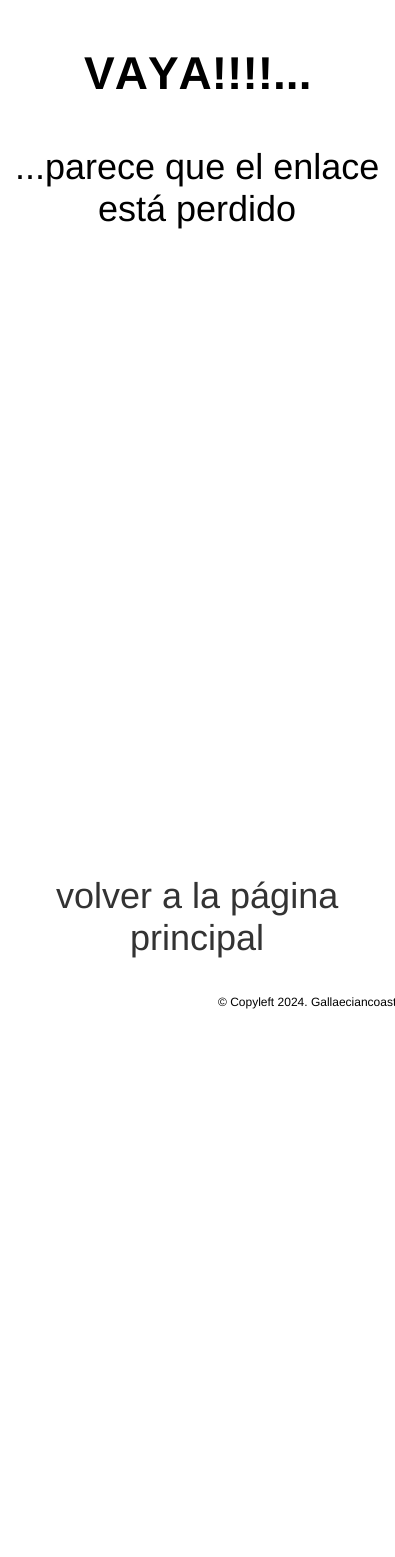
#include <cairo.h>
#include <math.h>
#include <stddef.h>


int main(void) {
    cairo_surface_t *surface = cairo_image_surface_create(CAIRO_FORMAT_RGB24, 395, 1557);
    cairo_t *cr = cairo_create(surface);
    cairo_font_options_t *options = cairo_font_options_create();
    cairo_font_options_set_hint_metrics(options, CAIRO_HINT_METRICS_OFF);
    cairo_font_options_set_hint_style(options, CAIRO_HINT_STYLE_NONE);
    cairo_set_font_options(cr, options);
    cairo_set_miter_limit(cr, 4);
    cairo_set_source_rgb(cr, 1, 1, 1);
    cairo_paint(cr);
    cairo_select_font_face(cr, "Liberation Sans", CAIRO_FONT_SLANT_NORMAL, CAIRO_FONT_WEIGHT_BOLD);
    cairo_set_font_size(cr, 46);
    cairo_set_source_rgb(cr, 0, 0, 0);
    cairo_move_to(cr, 84, 89);
    cairo_show_text(cr, "VAYA!!!!...");
    cairo_select_font_face(cr, "Liberation Sans", CAIRO_FONT_SLANT_NORMAL, CAIRO_FONT_WEIGHT_NORMAL);
    cairo_set_font_size(cr, 36);
    cairo_move_to(cr, 15, 179);
    cairo_show_text(cr, "...parece que el enlace");
    cairo_move_to(cr, 98, 221);
    cairo_show_text(cr, "está perdido");
    cairo_set_source_rgb(cr, 0.2, 0.2, 0.2);
    cairo_move_to(cr, 56, 908);
    cairo_show_text(cr, "volver a la página");
    cairo_move_to(cr, 130, 950);
    cairo_show_text(cr, "principal");
    cairo_set_font_size(cr, 12);
    cairo_set_source_rgb(cr, 0, 0, 0);
    cairo_move_to(cr, 218, 1006);
    cairo_show_text(cr, "© Copyleft 2024. Gallaeciancoast");
    cairo_surface_write_to_png(surface, "page.png");
    cairo_font_options_destroy(options);
    cairo_destroy(cr);
    cairo_surface_destroy(surface);
    return 0;
}
